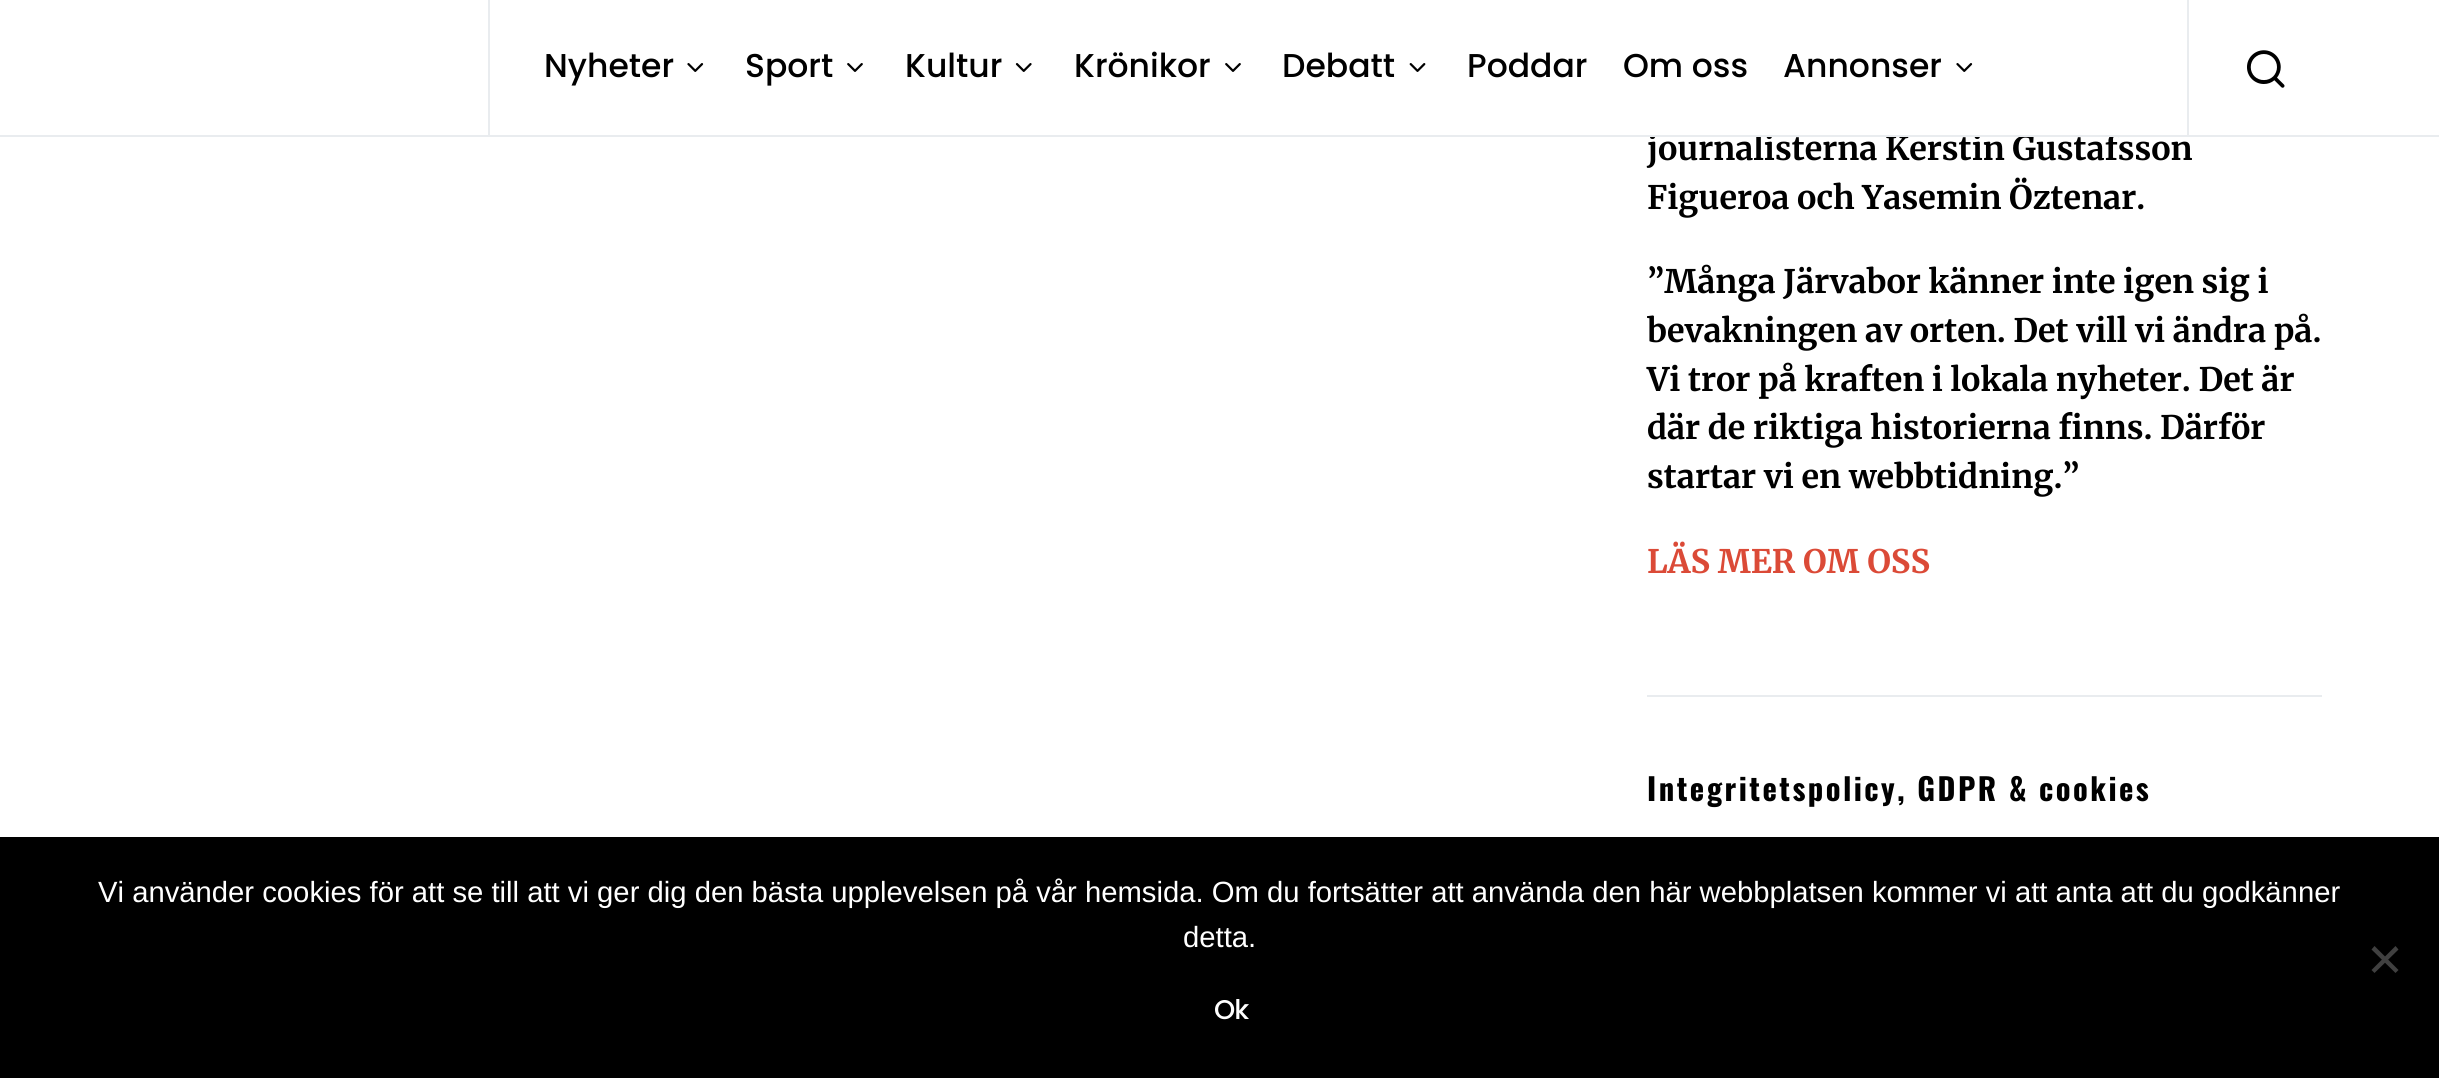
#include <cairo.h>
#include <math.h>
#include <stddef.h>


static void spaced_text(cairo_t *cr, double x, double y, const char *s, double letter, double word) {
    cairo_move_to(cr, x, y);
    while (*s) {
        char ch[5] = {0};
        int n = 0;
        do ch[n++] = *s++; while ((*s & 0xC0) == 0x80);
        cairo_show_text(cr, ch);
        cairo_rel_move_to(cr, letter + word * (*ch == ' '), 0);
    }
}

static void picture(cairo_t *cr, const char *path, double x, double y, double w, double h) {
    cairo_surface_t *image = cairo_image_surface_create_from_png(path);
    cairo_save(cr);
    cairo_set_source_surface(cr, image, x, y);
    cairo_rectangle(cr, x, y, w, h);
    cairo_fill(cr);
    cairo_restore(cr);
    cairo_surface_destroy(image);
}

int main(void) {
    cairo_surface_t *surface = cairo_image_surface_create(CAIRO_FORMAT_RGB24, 2439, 1078);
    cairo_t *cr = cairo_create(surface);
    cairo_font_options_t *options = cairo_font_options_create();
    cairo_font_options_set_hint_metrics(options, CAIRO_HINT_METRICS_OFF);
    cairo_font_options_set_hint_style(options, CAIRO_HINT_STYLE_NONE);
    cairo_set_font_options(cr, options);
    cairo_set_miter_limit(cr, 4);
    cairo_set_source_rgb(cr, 1, 1, 1);
    cairo_paint(cr);
    cairo_select_font_face(cr, "Merriweather", CAIRO_FONT_SLANT_NORMAL, CAIRO_FONT_WEIGHT_BOLD);
    cairo_set_font_size(cr, 32.4);
    cairo_set_source_rgb(cr, 0, 0, 0);
    cairo_move_to(cr, 1647, 160);
    cairo_show_text(cr, "journalisterna Kerstin Gustafsson");
    cairo_set_source_rgb(cr, 1, 1, 1);
    cairo_rectangle(cr, 1650, 132, 469, 3);
    cairo_fill(cr);
    cairo_set_source_rgb(cr, 0.914, 0.925, 0.937);
    cairo_rectangle(cr, 0, 135, 2439, 2);
    cairo_fill(cr);
    cairo_rectangle(cr, 488, 0, 2, 135);
    cairo_fill(cr);
    cairo_select_font_face(cr, "Poppins Medium", CAIRO_FONT_SLANT_NORMAL, CAIRO_FONT_WEIGHT_NORMAL);
    cairo_set_font_size(cr, 33);
    cairo_set_source_rgb(cr, 0, 0, 0);
    cairo_move_to(cr, 544, 77);
    cairo_show_text(cr, "Nyheter");
    picture(cr, "img1.png", 687, 63, 17, 9);
    cairo_move_to(cr, 745, 77);
    cairo_show_text(cr, "Sport");
    picture(cr, "img2.png", 847, 63, 16, 9);
    cairo_move_to(cr, 905, 77);
    cairo_show_text(cr, "Kultur");
    picture(cr, "img3.png", 1015, 63, 17, 9);
    cairo_move_to(cr, 1074, 77);
    cairo_show_text(cr, "Krönikor");
    picture(cr, "img2.png", 1225, 63, 16, 9);
    cairo_move_to(cr, 1282, 77);
    cairo_show_text(cr, "Debatt");
    picture(cr, "img4.png", 1409, 63, 17, 9);
    cairo_move_to(cr, 1467, 77);
    cairo_show_text(cr, "Poddar");
    cairo_move_to(cr, 1623, 77);
    cairo_show_text(cr, "Om oss");
    cairo_move_to(cr, 1783, 77);
    cairo_show_text(cr, "Annonser");
    picture(cr, "img1.png", 1956, 63, 17, 9);
    cairo_set_source_rgb(cr, 0.914, 0.925, 0.937);
    cairo_rectangle(cr, 2187, 0, 2, 135);
    cairo_fill(cr);
    picture(cr, "img5.png", 2247, 50, 38, 38);
    cairo_rectangle(cr, 1647, 695, 675, 2);
    cairo_fill(cr);
    cairo_select_font_face(cr, "Merriweather", CAIRO_FONT_SLANT_NORMAL, CAIRO_FONT_WEIGHT_BOLD);
    cairo_set_font_size(cr, 32.4);
    cairo_set_source_rgb(cr, 0, 0, 0);
    cairo_move_to(cr, 1647, 209);
    cairo_show_text(cr, "Figueroa och Yasemin Öztenar.");
    cairo_move_to(cr, 1647, 293);
    cairo_show_text(cr, "”Många Järvabor känner inte igen sig i");
    cairo_move_to(cr, 1647, 342);
    cairo_show_text(cr, "bevakningen av orten. Det vill vi ändra på.");
    cairo_move_to(cr, 1647, 391);
    cairo_show_text(cr, "Vi tror på kraften i lokala nyheter. Det är");
    cairo_move_to(cr, 1647, 439);
    cairo_show_text(cr, "där de riktiga historierna finns. Därför");
    cairo_move_to(cr, 1647, 488);
    cairo_show_text(cr, "startar vi en webbtidning.”");
    cairo_set_source_rgb(cr, 0.859, 0.29, 0.216);
    cairo_move_to(cr, 1647, 573);
    cairo_show_text(cr, "LÄS MER OM OSS");
    cairo_select_font_face(cr, "Oswald", CAIRO_FONT_SLANT_NORMAL, CAIRO_FONT_WEIGHT_BOLD);
    cairo_set_font_size(cr, 30.6);
    cairo_set_source_rgb(cr, 0, 0, 0);
    spaced_text(cr, 1647, 801, "Integritetspolicy, GDPR & cookies", 2.45, 0);
    cairo_rectangle(cr, 0, 837, 2439, 241);
    cairo_fill(cr);
    cairo_select_font_face(cr, "Liberation Sans", CAIRO_FONT_SLANT_NORMAL, CAIRO_FONT_WEIGHT_NORMAL);
    cairo_set_font_size(cr, 29.25);
    cairo_set_source_rgb(cr, 1, 1, 1);
    cairo_move_to(cr, 98, 902);
    cairo_show_text(cr, "Vi använder cookies för att se till att vi ger dig den bästa upplevelsen på vår hemsida. Om du fortsätter att använda den här webbplatsen kommer vi att anta att du godkänner");
    cairo_move_to(cr, 1183, 947);
    cairo_show_text(cr, "detta.");
    cairo_set_source_rgb(cr, 0.251, 0.251, 0.251);
    cairo_new_path(cr);
    cairo_move_to(cr, 2395.5, 946);
    cairo_line_to(cr, 2398.5, 949.5);
    cairo_line_to(cr, 2374.5, 973);
    cairo_line_to(cr, 2371.5, 970);
    cairo_close_path(cr);
    cairo_fill(cr);
    cairo_new_path(cr);
    cairo_move_to(cr, 2371.5, 949.5);
    cairo_line_to(cr, 2374.5, 946);
    cairo_line_to(cr, 2398.5, 970);
    cairo_line_to(cr, 2395.5, 973);
    cairo_close_path(cr);
    cairo_fill(cr);
    cairo_select_font_face(cr, "Poppins Medium", CAIRO_FONT_SLANT_NORMAL, CAIRO_FONT_WEIGHT_NORMAL);
    cairo_set_font_size(cr, 27);
    cairo_set_source_rgb(cr, 1, 1, 1);
    spaced_text(cr, 1214, 1019, "Ok", -1, 0);
    cairo_surface_write_to_png(surface, "page.png");
    cairo_font_options_destroy(options);
    cairo_destroy(cr);
    cairo_surface_destroy(surface);
    return 0;
}
